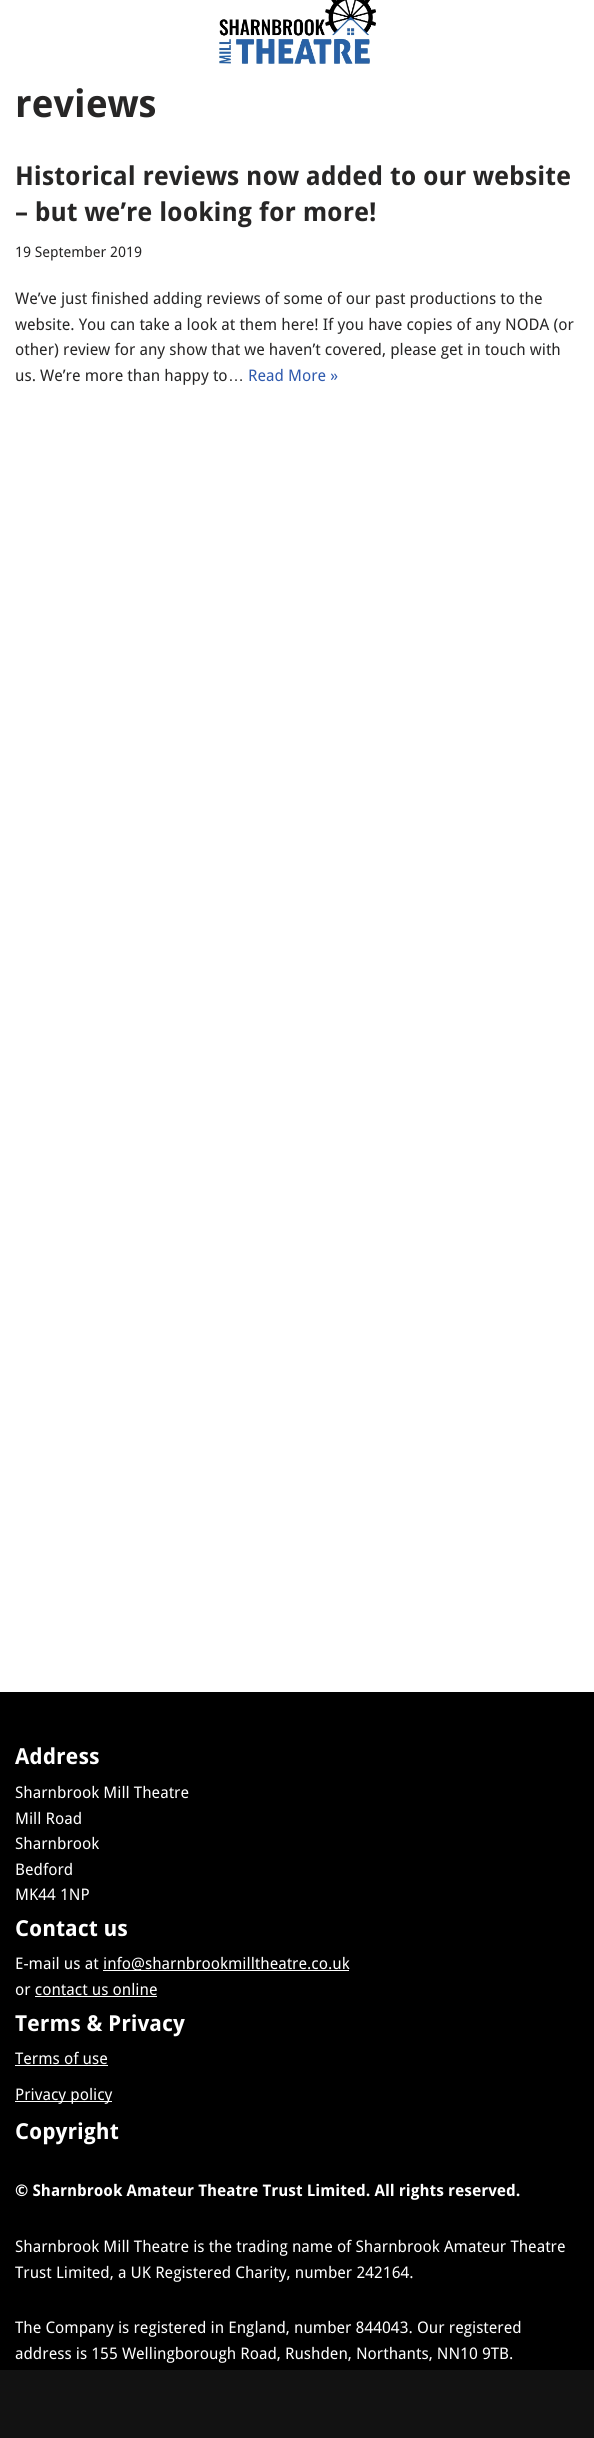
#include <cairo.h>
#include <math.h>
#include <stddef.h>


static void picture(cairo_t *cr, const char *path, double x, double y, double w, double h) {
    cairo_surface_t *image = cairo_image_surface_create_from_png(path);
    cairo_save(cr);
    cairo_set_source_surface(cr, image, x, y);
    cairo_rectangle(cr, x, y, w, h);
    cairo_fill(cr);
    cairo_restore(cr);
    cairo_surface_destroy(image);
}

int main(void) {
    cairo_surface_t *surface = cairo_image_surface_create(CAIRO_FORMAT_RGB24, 594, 2438);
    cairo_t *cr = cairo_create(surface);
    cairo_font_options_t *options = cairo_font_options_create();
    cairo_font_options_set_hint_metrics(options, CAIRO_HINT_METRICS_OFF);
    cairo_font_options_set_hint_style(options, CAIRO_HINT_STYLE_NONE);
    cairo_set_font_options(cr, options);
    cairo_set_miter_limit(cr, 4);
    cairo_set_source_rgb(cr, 1, 1, 1);
    cairo_paint(cr);
    picture(cr, "img1.png", 219, 0, 157, 64);
    cairo_select_font_face(cr, "Droid Sans", CAIRO_FONT_SLANT_NORMAL, CAIRO_FONT_WEIGHT_BOLD);
    cairo_set_font_size(cr, 38);
    cairo_set_source_rgb(cr, 0.153, 0.149, 0.149);
    cairo_move_to(cr, 15, 117);
    cairo_show_text(cr, "reviews");
    cairo_set_font_size(cr, 26);
    cairo_move_to(cr, 15, 185);
    cairo_show_text(cr, "Historical reviews now added to our website");
    cairo_move_to(cr, 15, 221);
    cairo_show_text(cr, "– but we’re looking for more!");
    cairo_select_font_face(cr, "Droid Sans", CAIRO_FONT_SLANT_NORMAL, CAIRO_FONT_WEIGHT_NORMAL);
    cairo_set_font_size(cr, 14.5);
    cairo_move_to(cr, 15, 257);
    cairo_show_text(cr, "19 September 2019");
    cairo_set_font_size(cr, 16);
    cairo_move_to(cr, 15, 304);
    cairo_show_text(cr, "We’ve just finished adding reviews of some of our past productions to the");
    cairo_move_to(cr, 15, 330);
    cairo_show_text(cr, "website. You can take a look at them here! If you have copies of any NODA (or");
    cairo_move_to(cr, 15, 355);
    cairo_show_text(cr, "other) review for any show that we haven’t covered, please get in touch with");
    cairo_move_to(cr, 15, 381);
    cairo_show_text(cr, "us. We’re more than happy to");
    cairo_select_font_face(cr, "Liberation Sans", CAIRO_FONT_SLANT_NORMAL, CAIRO_FONT_WEIGHT_NORMAL);
    cairo_move_to(cr, 228, 381);
    cairo_show_text(cr, "…");
    cairo_select_font_face(cr, "Droid Sans", CAIRO_FONT_SLANT_NORMAL, CAIRO_FONT_WEIGHT_NORMAL);
    cairo_set_source_rgb(cr, 0.184, 0.353, 0.682);
    cairo_move_to(cr, 248, 381);
    cairo_show_text(cr, "Read More »");
    cairo_set_source_rgb(cr, 0, 0, 0);
    cairo_rectangle(cr, 0, 1692, 594, 678);
    cairo_fill(cr);
    cairo_select_font_face(cr, "Droid Sans", CAIRO_FONT_SLANT_NORMAL, CAIRO_FONT_WEIGHT_BOLD);
    cairo_set_font_size(cr, 22);
    cairo_set_source_rgb(cr, 1, 1, 1);
    cairo_move_to(cr, 15, 1764);
    cairo_show_text(cr, "Address");
    cairo_select_font_face(cr, "Droid Sans", CAIRO_FONT_SLANT_NORMAL, CAIRO_FONT_WEIGHT_NORMAL);
    cairo_set_font_size(cr, 16);
    cairo_move_to(cr, 15, 1798);
    cairo_show_text(cr, "Sharnbrook Mill Theatre");
    cairo_move_to(cr, 15, 1824);
    cairo_show_text(cr, "Mill Road");
    cairo_move_to(cr, 15, 1849);
    cairo_show_text(cr, "Sharnbrook");
    cairo_move_to(cr, 15, 1875);
    cairo_show_text(cr, "Bedford");
    cairo_move_to(cr, 15, 1900);
    cairo_show_text(cr, "MK44 1NP");
    cairo_select_font_face(cr, "Droid Sans", CAIRO_FONT_SLANT_NORMAL, CAIRO_FONT_WEIGHT_BOLD);
    cairo_set_font_size(cr, 22);
    cairo_move_to(cr, 15, 1936);
    cairo_show_text(cr, "Contact us");
    cairo_select_font_face(cr, "Droid Sans", CAIRO_FONT_SLANT_NORMAL, CAIRO_FONT_WEIGHT_NORMAL);
    cairo_set_font_size(cr, 16);
    cairo_move_to(cr, 15, 1969);
    cairo_show_text(cr, "E-mail us at");
    cairo_rectangle(cr, 103, 1970, 246, 1);
    cairo_fill(cr);
    cairo_move_to(cr, 103, 1969);
    cairo_show_text(cr, "info@sharnbrookmilltheatre.co.uk");
    cairo_move_to(cr, 15, 1995);
    cairo_show_text(cr, "or contact us online");
    cairo_rectangle(cr, 35, 1996, 122, 1);
    cairo_fill(cr);
    cairo_select_font_face(cr, "Droid Sans", CAIRO_FONT_SLANT_NORMAL, CAIRO_FONT_WEIGHT_BOLD);
    cairo_set_font_size(cr, 22);
    cairo_move_to(cr, 15, 2031);
    cairo_show_text(cr, "Terms & Privacy");
    cairo_select_font_face(cr, "Droid Sans", CAIRO_FONT_SLANT_NORMAL, CAIRO_FONT_WEIGHT_NORMAL);
    cairo_set_font_size(cr, 16);
    cairo_move_to(cr, 15, 2064);
    cairo_show_text(cr, "Terms of use");
    cairo_rectangle(cr, 15, 2065, 93, 1);
    cairo_fill(cr);
    cairo_rectangle(cr, 15, 2101, 97, 1);
    cairo_fill(cr);
    cairo_move_to(cr, 15, 2100);
    cairo_show_text(cr, "Privacy policy");
    cairo_select_font_face(cr, "Droid Sans", CAIRO_FONT_SLANT_NORMAL, CAIRO_FONT_WEIGHT_BOLD);
    cairo_set_font_size(cr, 22);
    cairo_move_to(cr, 15, 2139);
    cairo_show_text(cr, "Copyright");
    cairo_set_font_size(cr, 16);
    cairo_move_to(cr, 15, 2196);
    cairo_show_text(cr, "© Sharnbrook Amateur Theatre Trust Limited. All rights reserved.");
    cairo_select_font_face(cr, "Droid Sans", CAIRO_FONT_SLANT_NORMAL, CAIRO_FONT_WEIGHT_NORMAL);
    cairo_move_to(cr, 15, 2252);
    cairo_show_text(cr, "Sharnbrook Mill Theatre is the trading name of Sharnbrook Amateur Theatre");
    cairo_move_to(cr, 15, 2278);
    cairo_show_text(cr, "Trust Limited, a UK Registered Charity, number 242164.");
    cairo_move_to(cr, 15, 2333);
    cairo_show_text(cr, "The Company is registered in England, number 844043. Our registered");
    cairo_move_to(cr, 15, 2359);
    cairo_show_text(cr, "address is 155 Wellingborough Road, Rushden, Northants, NN10 9TB.");
    cairo_set_source_rgb(cr, 0.071, 0.071, 0.071);
    cairo_rectangle(cr, 0, 2370, 594, 68);
    cairo_fill(cr);
    cairo_surface_write_to_png(surface, "page.png");
    cairo_font_options_destroy(options);
    cairo_destroy(cr);
    cairo_surface_destroy(surface);
    return 0;
}
